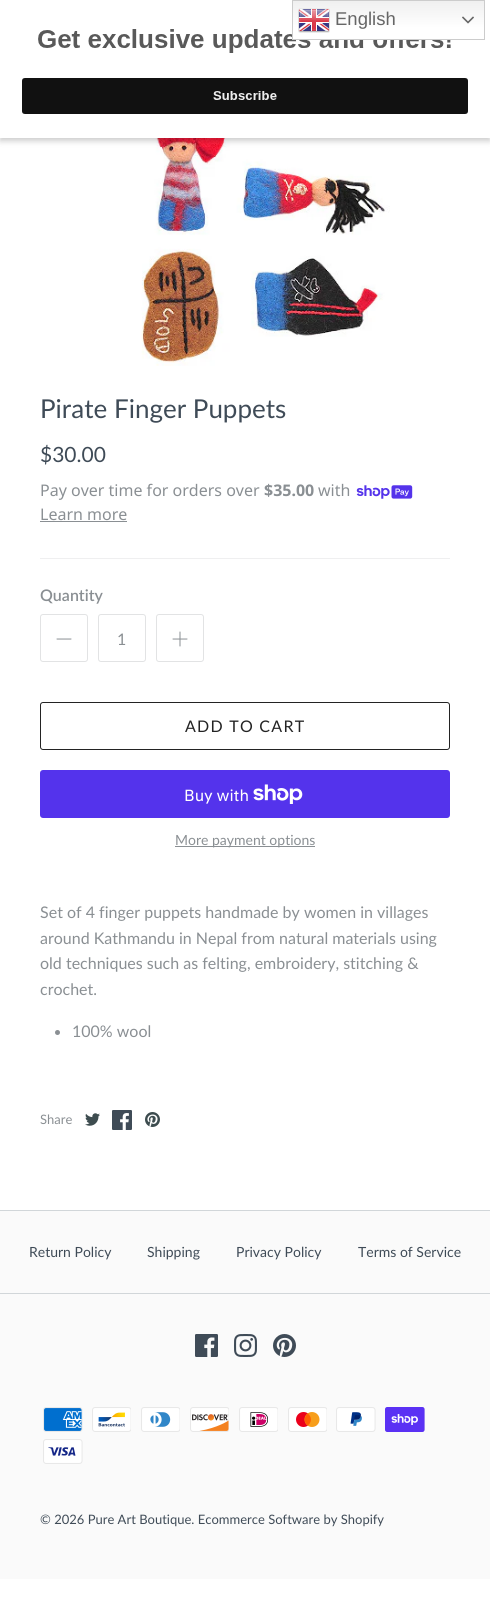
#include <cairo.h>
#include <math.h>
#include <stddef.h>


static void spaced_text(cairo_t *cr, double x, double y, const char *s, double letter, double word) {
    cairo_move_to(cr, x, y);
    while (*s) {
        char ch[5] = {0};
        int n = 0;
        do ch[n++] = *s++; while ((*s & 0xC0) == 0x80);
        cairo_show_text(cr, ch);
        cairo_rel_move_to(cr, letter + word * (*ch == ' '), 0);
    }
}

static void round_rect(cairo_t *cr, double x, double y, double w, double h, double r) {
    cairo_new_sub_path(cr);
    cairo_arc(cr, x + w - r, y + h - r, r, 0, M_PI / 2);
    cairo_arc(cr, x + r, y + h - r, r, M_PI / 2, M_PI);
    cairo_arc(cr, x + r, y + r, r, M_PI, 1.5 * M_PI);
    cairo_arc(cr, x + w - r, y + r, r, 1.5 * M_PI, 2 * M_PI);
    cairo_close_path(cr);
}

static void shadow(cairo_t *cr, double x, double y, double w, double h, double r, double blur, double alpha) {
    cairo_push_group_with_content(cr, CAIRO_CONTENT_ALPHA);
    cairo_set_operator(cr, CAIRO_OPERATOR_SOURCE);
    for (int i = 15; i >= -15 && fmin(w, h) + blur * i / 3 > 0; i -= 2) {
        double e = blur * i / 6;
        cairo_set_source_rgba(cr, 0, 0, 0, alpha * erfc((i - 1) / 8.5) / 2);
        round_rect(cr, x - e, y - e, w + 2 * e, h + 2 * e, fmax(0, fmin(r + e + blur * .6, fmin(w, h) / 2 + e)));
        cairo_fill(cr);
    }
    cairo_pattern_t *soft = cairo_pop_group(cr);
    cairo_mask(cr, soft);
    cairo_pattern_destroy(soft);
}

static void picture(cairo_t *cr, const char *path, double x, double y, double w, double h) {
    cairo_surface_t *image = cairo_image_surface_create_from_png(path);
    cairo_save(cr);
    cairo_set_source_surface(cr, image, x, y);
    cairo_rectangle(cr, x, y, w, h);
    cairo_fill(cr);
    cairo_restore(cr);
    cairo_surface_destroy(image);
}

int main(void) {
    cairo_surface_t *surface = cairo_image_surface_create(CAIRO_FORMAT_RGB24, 490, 1613);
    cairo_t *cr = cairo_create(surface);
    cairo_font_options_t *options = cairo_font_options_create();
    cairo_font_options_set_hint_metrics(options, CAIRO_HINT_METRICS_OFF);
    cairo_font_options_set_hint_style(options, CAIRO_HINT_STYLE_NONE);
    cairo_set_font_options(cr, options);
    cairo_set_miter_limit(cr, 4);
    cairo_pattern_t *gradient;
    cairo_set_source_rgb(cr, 1, 1, 1);
    cairo_paint(cr);
    picture(cr, "img4.png", 141, 138, 249, 228);
    cairo_set_source_rgb(cr, 0, 0, 0);
    shadow(cr, 0, 3, 490, 138, 0, 3, 0.2);
    cairo_set_source_rgb(cr, 1, 1, 1);
    cairo_rectangle(cr, 0, 0, 490, 138);
    cairo_fill(cr);
    picture(cr, "img1.png", 22, 14, 454, 100);
    gradient = cairo_pattern_create_linear(389, 0, 389, 40);
    cairo_pattern_add_color_stop_rgba(gradient, 0, 0.937, 0.937, 0.937, 1);
    cairo_pattern_add_color_stop_rgba(gradient, 0.7, 1, 1, 1, 1);
    cairo_set_source(cr, gradient);
    cairo_pattern_destroy(gradient);
    cairo_rectangle(cr, 293, 1, 191, 38);
    cairo_fill(cr);
    cairo_rectangle(cr, 292.5, 0.5, 192, 39);
    cairo_set_source_rgb(cr, 0.8, 0.8, 0.8);
    cairo_set_line_width(cr, 1);
    cairo_stroke(cr);
    picture(cr, "img2.png", 298, 8, 32, 25);
    cairo_select_font_face(cr, "Liberation Sans", CAIRO_FONT_SLANT_NORMAL, CAIRO_FONT_WEIGHT_NORMAL);
    cairo_set_font_size(cr, 18.5);
    cairo_set_source_rgb(cr, 0.4, 0.4, 0.4);
    cairo_move_to(cr, 335, 25);
    cairo_show_text(cr, "English");
    picture(cr, "img3.png", 462, 16, 12, 8);
    cairo_select_font_face(cr, "Lato", CAIRO_FONT_SLANT_NORMAL, CAIRO_FONT_WEIGHT_NORMAL);
    cairo_set_font_size(cr, 26);
    cairo_set_source_rgb(cr, 0.247, 0.294, 0.341);
    cairo_move_to(cr, 40, 418);
    cairo_show_text(cr, "Pirate Finger Puppets");
    cairo_set_font_size(cr, 21);
    cairo_move_to(cr, 40, 462);
    cairo_show_text(cr, "$30.00");
    cairo_select_font_face(cr, "Noto Sans", CAIRO_FONT_SLANT_NORMAL, CAIRO_FONT_WEIGHT_NORMAL);
    cairo_set_font_size(cr, 16);
    cairo_set_source_rgb(cr, 0.541, 0.561, 0.576);
    cairo_move_to(cr, 40, 496);
    cairo_show_text(cr, "Pay over time for orders over");
    cairo_select_font_face(cr, "Noto Sans", CAIRO_FONT_SLANT_NORMAL, CAIRO_FONT_WEIGHT_BOLD);
    cairo_move_to(cr, 264, 496);
    cairo_show_text(cr, "$35.00");
    cairo_select_font_face(cr, "Noto Sans", CAIRO_FONT_SLANT_NORMAL, CAIRO_FONT_WEIGHT_NORMAL);
    cairo_move_to(cr, 318, 496);
    cairo_show_text(cr, "with");
    picture(cr, "img5.png", 356, 485, 57, 14);
    cairo_move_to(cr, 40, 520);
    cairo_show_text(cr, "Learn more");
    cairo_rectangle(cr, 40, 521, 87, 1);
    cairo_fill(cr);
    cairo_set_source_rgb(cr, 0.937, 0.937, 0.941);
    cairo_rectangle(cr, 40, 558, 410, 1);
    cairo_fill(cr);
    cairo_select_font_face(cr, "Lato SemiBold", CAIRO_FONT_SLANT_NORMAL, CAIRO_FONT_WEIGHT_NORMAL);
    cairo_set_source_rgb(cr, 0.541, 0.561, 0.576);
    cairo_move_to(cr, 40, 601);
    cairo_show_text(cr, "Quantity");
    round_rect(cr, 40.5, 614.5, 47, 47, 2.5);
    cairo_set_source_rgb(cr, 0.886, 0.89, 0.894);
    cairo_stroke(cr);
    cairo_new_path(cr);
    cairo_move_to(cr, 57, 639);
    cairo_line_to(cr, 71, 639);
    cairo_set_source_rgb(cr, 0.541, 0.561, 0.576);
    cairo_set_line_cap(cr, CAIRO_LINE_CAP_ROUND);
    cairo_set_line_join(cr, CAIRO_LINE_JOIN_ROUND);
    cairo_stroke(cr);
    round_rect(cr, 98.5, 614.5, 47, 47, 2.5);
    cairo_set_source_rgb(cr, 0.886, 0.89, 0.894);
    cairo_set_line_cap(cr, CAIRO_LINE_CAP_BUTT);
    cairo_set_line_join(cr, CAIRO_LINE_JOIN_MITER);
    cairo_stroke(cr);
    cairo_select_font_face(cr, "Lato", CAIRO_FONT_SLANT_NORMAL, CAIRO_FONT_WEIGHT_NORMAL);
    cairo_set_source_rgb(cr, 0.541, 0.561, 0.576);
    cairo_move_to(cr, 117, 645);
    cairo_show_text(cr, "1");
    round_rect(cr, 156.5, 614.5, 47, 47, 2.5);
    cairo_set_source_rgb(cr, 0.886, 0.89, 0.894);
    cairo_stroke(cr);
    cairo_new_path(cr);
    cairo_move_to(cr, 180, 632);
    cairo_line_to(cr, 180, 646);
    cairo_move_to(cr, 173, 639);
    cairo_line_to(cr, 187, 639);
    cairo_set_source_rgb(cr, 0.541, 0.561, 0.576);
    cairo_set_line_cap(cr, CAIRO_LINE_CAP_ROUND);
    cairo_set_line_join(cr, CAIRO_LINE_JOIN_ROUND);
    cairo_stroke(cr);
    round_rect(cr, 40.5, 702.5, 409, 47, 2.5);
    cairo_set_source_rgb(cr, 0.137, 0.137, 0.137);
    cairo_set_line_cap(cr, CAIRO_LINE_CAP_BUTT);
    cairo_set_line_join(cr, CAIRO_LINE_JOIN_MITER);
    cairo_stroke(cr);
    spaced_text(cr, 185, 732, "ADD TO CART", 1.25, 0);
    cairo_set_source_rgb(cr, 1, 1, 1);
    cairo_new_path(cr);
    cairo_move_to(cr, 236.5, 726);
    cairo_line_to(cr, 244, 733);
    cairo_line_to(cr, 242.5, 734);
    cairo_line_to(cr, 235.5, 727);
    cairo_close_path(cr);
    cairo_fill(cr);
    cairo_set_source_rgb(cr, 0.329, 0.2, 0.922);
    round_rect(cr, 40, 770, 410, 48, 3);
    cairo_fill(cr);
    cairo_select_font_face(cr, "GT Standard", CAIRO_FONT_SLANT_NORMAL, CAIRO_FONT_WEIGHT_NORMAL);
    cairo_set_source_rgb(cr, 1, 1, 1);
    cairo_move_to(cr, 184, 801);
    cairo_show_text(cr, "Buy with");
    picture(cr, "img6.png", 253, 784, 50, 20);
    cairo_set_source_rgb(cr, 0.541, 0.561, 0.576);
    cairo_rectangle(cr, 175, 846, 140, 1);
    cairo_fill(cr);
    cairo_select_font_face(cr, "Lato", CAIRO_FONT_SLANT_NORMAL, CAIRO_FONT_WEIGHT_NORMAL);
    cairo_set_font_size(cr, 14);
    cairo_move_to(cr, 175, 845);
    cairo_show_text(cr, "More payment options");
    cairo_set_font_size(cr, 16);
    cairo_move_to(cr, 40, 918);
    cairo_show_text(cr, "Set of 4 finger puppets handmade by women in villages");
    cairo_move_to(cr, 40, 944);
    cairo_show_text(cr, "around Kathmandu in Nepal from natural materials using");
    cairo_move_to(cr, 40, 969);
    cairo_show_text(cr, "old techniques such as felting, embroidery, stitching &");
    cairo_move_to(cr, 40, 995);
    cairo_show_text(cr, "crochet.");
    cairo_new_path(cr);
    cairo_arc(cr, 57.5, 1032.5, 2.5, 0, 2 * M_PI);
    cairo_fill(cr);
    cairo_move_to(cr, 72, 1037);
    cairo_show_text(cr, "100% wool");
    cairo_set_font_size(cr, 13);
    cairo_move_to(cr, 40, 1124);
    cairo_show_text(cr, "Share");
    picture(cr, "img7.png", 85, 1113, 15, 13);
    picture(cr, "img8.png", 112, 1110, 20, 20);
    picture(cr, "img9.png", 145, 1112, 15, 15);
    cairo_set_source_rgb(cr, 0.98, 0.98, 0.98);
    cairo_rectangle(cr, 0, 1211, 490, 368);
    cairo_fill(cr);
    cairo_set_source_rgb(cr, 0.82, 0.839, 0.851);
    cairo_rectangle(cr, 0, 1210, 490, 1);
    cairo_fill(cr);
    cairo_rectangle(cr, 0, 1293, 490, 1);
    cairo_fill(cr);
    cairo_set_font_size(cr, 14);
    cairo_set_source_rgb(cr, 0.247, 0.294, 0.341);
    cairo_move_to(cr, 29, 1257);
    cairo_show_text(cr, "Return Policy");
    cairo_move_to(cr, 147, 1257);
    cairo_show_text(cr, "Shipping");
    cairo_move_to(cr, 236, 1257);
    cairo_show_text(cr, "Privacy Policy");
    cairo_move_to(cr, 358, 1257);
    cairo_show_text(cr, "Terms of Service");
    picture(cr, "img10.png", 195, 1334, 23, 23);
    picture(cr, "img11.png", 234, 1334, 23, 23);
    picture(cr, "img12.png", 273, 1334, 23, 23);
    picture(cr, "img13.png", 43, 1407, 40, 25);
    picture(cr, "img14.png", 92, 1407, 39, 25);
    picture(cr, "img15.png", 141, 1407, 39, 25);
    picture(cr, "img16.png", 190, 1407, 39, 25);
    picture(cr, "img17.png", 239, 1407, 39, 25);
    picture(cr, "img18.png", 288, 1407, 39, 25);
    picture(cr, "img19.png", 336, 1407, 40, 25);
    picture(cr, "img20.png", 385, 1407, 40, 25);
    picture(cr, "img21.png", 43, 1439, 40, 25);
    cairo_set_font_size(cr, 13);
    cairo_move_to(cr, 40, 1524);
    cairo_show_text(cr, "© 2026 Pure Art Boutique. Ecommerce Software by Shopify");
    cairo_surface_write_to_png(surface, "page.png");
    cairo_font_options_destroy(options);
    cairo_destroy(cr);
    cairo_surface_destroy(surface);
    return 0;
}
